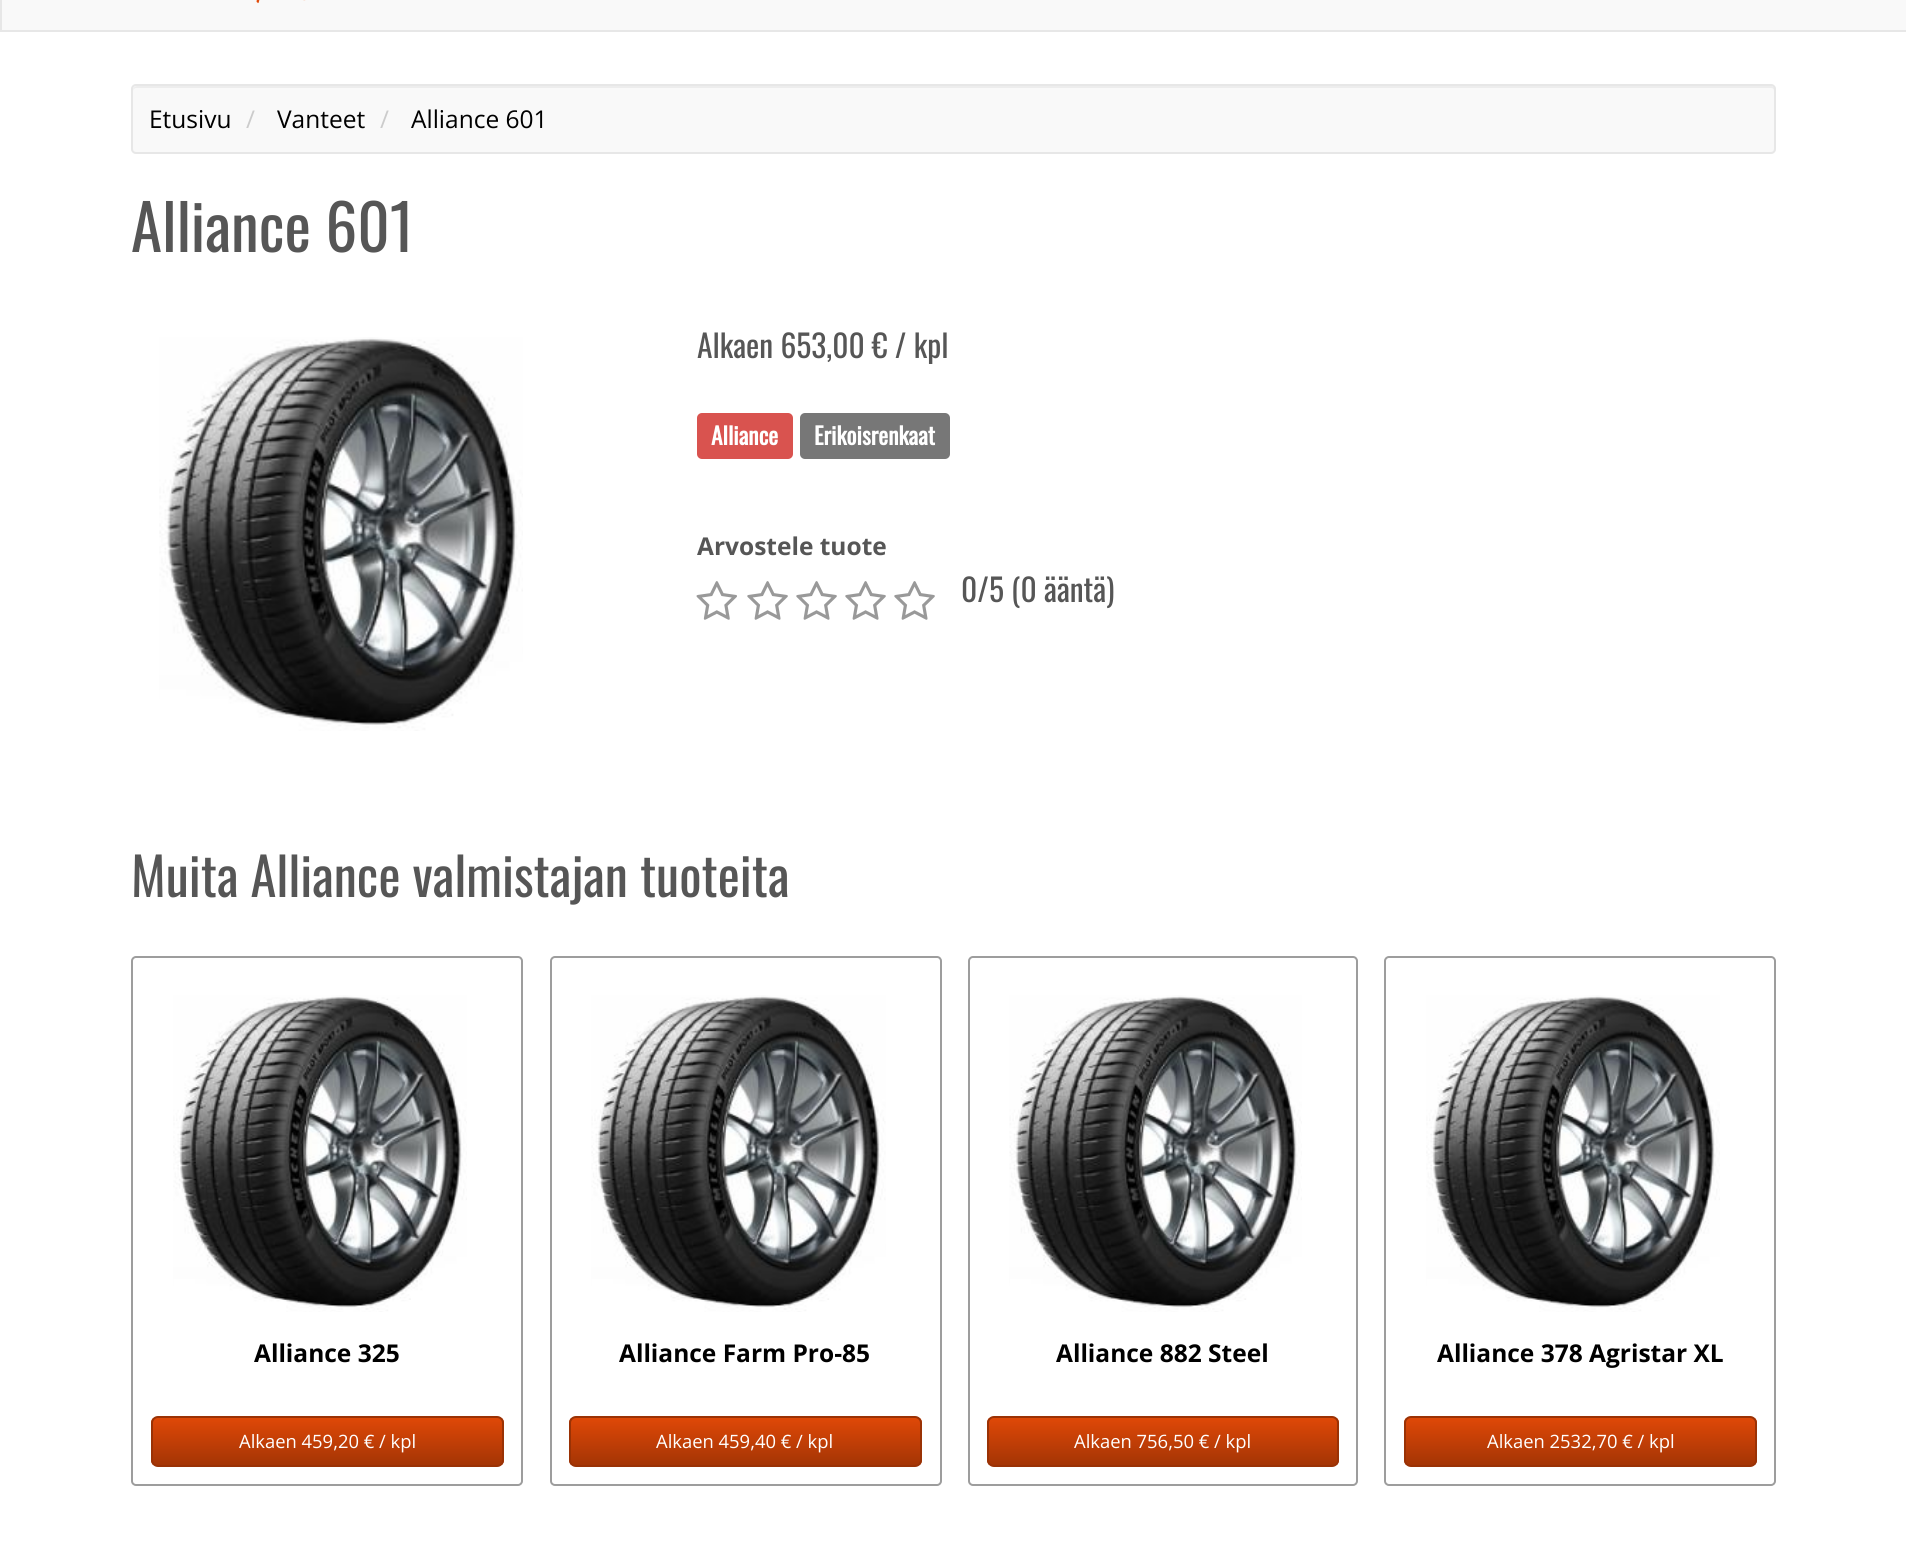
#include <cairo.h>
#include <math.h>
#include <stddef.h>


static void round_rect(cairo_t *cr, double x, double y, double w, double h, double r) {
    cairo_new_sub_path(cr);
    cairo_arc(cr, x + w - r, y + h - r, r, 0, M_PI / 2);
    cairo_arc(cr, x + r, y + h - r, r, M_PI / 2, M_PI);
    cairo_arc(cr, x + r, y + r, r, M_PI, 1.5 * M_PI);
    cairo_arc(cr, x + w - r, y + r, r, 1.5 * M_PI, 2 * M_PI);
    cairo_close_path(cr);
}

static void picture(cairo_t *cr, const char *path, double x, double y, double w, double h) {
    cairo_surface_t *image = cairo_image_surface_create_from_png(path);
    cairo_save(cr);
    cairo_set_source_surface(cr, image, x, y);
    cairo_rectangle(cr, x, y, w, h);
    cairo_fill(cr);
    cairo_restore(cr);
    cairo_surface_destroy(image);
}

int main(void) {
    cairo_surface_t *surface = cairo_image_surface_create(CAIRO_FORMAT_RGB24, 1906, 1555);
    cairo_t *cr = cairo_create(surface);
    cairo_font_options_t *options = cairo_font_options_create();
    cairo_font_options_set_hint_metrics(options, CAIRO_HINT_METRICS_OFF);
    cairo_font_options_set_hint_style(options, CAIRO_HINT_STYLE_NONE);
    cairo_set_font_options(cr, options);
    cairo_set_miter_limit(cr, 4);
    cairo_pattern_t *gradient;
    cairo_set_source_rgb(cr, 1, 1, 1);
    cairo_paint(cr);
    cairo_set_source_rgb(cr, 0.976, 0.976, 0.976);
    cairo_rectangle(cr, 1, -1, 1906, 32);
    cairo_fill_preserve(cr);
    cairo_set_source_rgb(cr, 0.906, 0.906, 0.906);
    cairo_stroke(cr);
    picture(cr, "img1.png", 256, 0, 50, 4);
    cairo_set_source_rgb(cr, 0.976, 0.976, 0.976);
    round_rect(cr, 131, 84, 1645, 70, 5);
    cairo_fill(cr);
    cairo_set_source_rgb(cr, 0.929, 0.929, 0.929);
    cairo_new_path(cr);
    cairo_move_to(cr, 136, 88);
    cairo_line_to(cr, 1771, 88);
    cairo_curve_to(cr, 1773, 88, 1774, 89, 1774, 91);
    cairo_line_to(cr, 1774, 151);
    cairo_curve_to(cr, 1775, 150, 1775, 149, 1775, 148);
    cairo_line_to(cr, 1775, 90);
    cairo_curve_to(cr, 1775, 88, 1773, 86, 1771, 86);
    cairo_line_to(cr, 137, 86);
    cairo_curve_to(cr, 135, 86, 133, 88, 133, 90);
    cairo_line_to(cr, 133, 91);
    cairo_curve_to(cr, 133, 89, 135, 88, 136, 88);
    cairo_close_path(cr);
    cairo_fill(cr);
    round_rect(cr, 132, 85, 1643, 68, 4);
    cairo_set_source_rgb(cr, 0.906, 0.906, 0.906);
    cairo_stroke(cr);
    cairo_select_font_face(cr, "Open Sans", CAIRO_FONT_SLANT_NORMAL, CAIRO_FONT_WEIGHT_NORMAL);
    cairo_set_font_size(cr, 24.5);
    cairo_set_source_rgb(cr, 0, 0, 0);
    cairo_move_to(cr, 149, 128);
    cairo_show_text(cr, "Etusivu");
    cairo_set_source_rgb(cr, 0.8, 0.8, 0.8);
    cairo_move_to(cr, 246, 128);
    cairo_show_text(cr, "/");
    cairo_set_source_rgb(cr, 0, 0, 0);
    cairo_move_to(cr, 277, 128);
    cairo_show_text(cr, "Vanteet");
    cairo_set_source_rgb(cr, 0.8, 0.8, 0.8);
    cairo_move_to(cr, 380, 128);
    cairo_show_text(cr, "/");
    cairo_set_source_rgb(cr, 0, 0, 0);
    cairo_move_to(cr, 411, 128);
    cairo_show_text(cr, "Alliance 601");
    cairo_select_font_face(cr, "Oswald", CAIRO_FONT_SLANT_NORMAL, CAIRO_FONT_WEIGHT_NORMAL);
    cairo_set_font_size(cr, 63);
    cairo_set_source_rgb(cr, 0.337, 0.337, 0.337);
    cairo_move_to(cr, 131, 252);
    cairo_show_text(cr, "Alliance 601");
    picture(cr, "img2.png", 159, 337, 364, 394);
    cairo_set_font_size(cr, 31.5);
    cairo_move_to(cr, 697, 358);
    cairo_show_text(cr, "Alkaen 653,00 € / kpl");
    cairo_set_source_rgb(cr, 0.851, 0.325, 0.31);
    round_rect(cr, 697, 413, 96, 46, 5);
    cairo_fill(cr);
    cairo_select_font_face(cr, "Oswald", CAIRO_FONT_SLANT_NORMAL, CAIRO_FONT_WEIGHT_BOLD);
    cairo_set_font_size(cr, 23.5);
    cairo_set_source_rgb(cr, 1, 1, 1);
    cairo_move_to(cr, 711, 445);
    cairo_show_text(cr, "Alliance");
    cairo_set_source_rgb(cr, 0.467, 0.467, 0.467);
    round_rect(cr, 800, 413, 150, 46, 5);
    cairo_fill(cr);
    cairo_set_source_rgb(cr, 1, 1, 1);
    cairo_move_to(cr, 814, 445);
    cairo_show_text(cr, "Erikoisrenkaat");
    cairo_select_font_face(cr, "Open Sans", CAIRO_FONT_SLANT_NORMAL, CAIRO_FONT_WEIGHT_BOLD);
    cairo_set_font_size(cr, 24.5);
    cairo_set_source_rgb(cr, 0.337, 0.337, 0.337);
    cairo_move_to(cr, 697, 555);
    cairo_show_text(cr, "Arvostele tuote");
    picture(cr, "img3.png", 696, 581, 41, 39);
    picture(cr, "img4.png", 747, 581, 41, 39);
    picture(cr, "img4.png", 796, 581, 41, 39);
    picture(cr, "img4.png", 845, 581, 41, 39);
    picture(cr, "img5.png", 894, 581, 41, 39);
    cairo_select_font_face(cr, "Oswald", CAIRO_FONT_SLANT_NORMAL, CAIRO_FONT_WEIGHT_NORMAL);
    cairo_set_font_size(cr, 31.5);
    cairo_move_to(cr, 961, 602);
    cairo_show_text(cr, "0/5 (0 ääntä)");
    cairo_set_font_size(cr, 52.5);
    cairo_move_to(cr, 131, 897);
    cairo_show_text(cr, "Muita Alliance valmistajan tuoteita");
    round_rect(cr, 132, 957, 390, 528, 4);
    cairo_set_source_rgb(cr, 0.616, 0.616, 0.616);
    cairo_stroke(cr);
    picture(cr, "img6.png", 173, 995, 294, 317);
    cairo_select_font_face(cr, "Open Sans", CAIRO_FONT_SLANT_NORMAL, CAIRO_FONT_WEIGHT_BOLD);
    cairo_set_font_size(cr, 24.5);
    cairo_set_source_rgb(cr, 0, 0, 0);
    cairo_move_to(cr, 254, 1362);
    cairo_show_text(cr, "Alliance 325");
    cairo_save(cr);
    round_rect(cr, 151, 1416, 353, 51, 7);
    cairo_clip(cr);
    gradient = cairo_pattern_create_linear(327, 1418, 327, 1465);
    cairo_pattern_add_color_stop_rgba(gradient, 0, 0.875, 0.282, 0.027, 1);
    cairo_pattern_add_color_stop_rgba(gradient, 1, 0.643, 0.208, 0.02, 1);
    cairo_set_source(cr, gradient);
    cairo_pattern_destroy(gradient);
    cairo_rectangle(cr, 151, 1418, 353, 47);
    cairo_fill(cr);
    cairo_restore(cr);
    round_rect(cr, 152, 1417, 351, 49, 6);
    cairo_set_source_rgb(cr, 0.604, 0.196, 0.02);
    cairo_stroke(cr);
    cairo_select_font_face(cr, "Open Sans", CAIRO_FONT_SLANT_NORMAL, CAIRO_FONT_WEIGHT_NORMAL);
    cairo_set_font_size(cr, 18.4);
    cairo_set_source_rgb(cr, 1, 1, 1);
    cairo_move_to(cr, 239, 1448);
    cairo_show_text(cr, "Alkaen 459,20 € / kpl");
    round_rect(cr, 551, 957, 390, 528, 4);
    cairo_set_source_rgb(cr, 0.616, 0.616, 0.616);
    cairo_stroke(cr);
    picture(cr, "img7.png", 591, 995, 295, 317);
    cairo_select_font_face(cr, "Open Sans", CAIRO_FONT_SLANT_NORMAL, CAIRO_FONT_WEIGHT_BOLD);
    cairo_set_font_size(cr, 24.5);
    cairo_set_source_rgb(cr, 0, 0, 0);
    cairo_move_to(cr, 619, 1362);
    cairo_show_text(cr, "Alliance Farm Pro-85");
    cairo_save(cr);
    round_rect(cr, 569, 1416, 353, 51, 7);
    cairo_clip(cr);
    gradient = cairo_pattern_create_linear(746, 1418, 746, 1465);
    cairo_pattern_add_color_stop_rgba(gradient, 0, 0.875, 0.282, 0.027, 1);
    cairo_pattern_add_color_stop_rgba(gradient, 1, 0.643, 0.208, 0.02, 1);
    cairo_set_source(cr, gradient);
    cairo_pattern_destroy(gradient);
    cairo_rectangle(cr, 569, 1418, 353, 47);
    cairo_fill(cr);
    cairo_restore(cr);
    round_rect(cr, 570, 1417, 351, 49, 6);
    cairo_set_source_rgb(cr, 0.604, 0.196, 0.02);
    cairo_stroke(cr);
    cairo_select_font_face(cr, "Open Sans", CAIRO_FONT_SLANT_NORMAL, CAIRO_FONT_WEIGHT_NORMAL);
    cairo_set_font_size(cr, 18.4);
    cairo_set_source_rgb(cr, 1, 1, 1);
    cairo_move_to(cr, 656, 1448);
    cairo_show_text(cr, "Alkaen 459,40 € / kpl");
    round_rect(cr, 969, 957, 388, 528, 4);
    cairo_set_source_rgb(cr, 0.616, 0.616, 0.616);
    cairo_stroke(cr);
    picture(cr, "img8.png", 1009, 995, 293, 317);
    cairo_select_font_face(cr, "Open Sans", CAIRO_FONT_SLANT_NORMAL, CAIRO_FONT_WEIGHT_BOLD);
    cairo_set_font_size(cr, 24.5);
    cairo_set_source_rgb(cr, 0, 0, 0);
    cairo_move_to(cr, 1056, 1362);
    cairo_show_text(cr, "Alliance 882 Steel");
    cairo_save(cr);
    round_rect(cr, 987, 1416, 352, 51, 7);
    cairo_clip(cr);
    gradient = cairo_pattern_create_linear(1163, 1418, 1163, 1465);
    cairo_pattern_add_color_stop_rgba(gradient, 0, 0.875, 0.282, 0.027, 1);
    cairo_pattern_add_color_stop_rgba(gradient, 1, 0.643, 0.208, 0.02, 1);
    cairo_set_source(cr, gradient);
    cairo_pattern_destroy(gradient);
    cairo_rectangle(cr, 987, 1418, 352, 47);
    cairo_fill(cr);
    cairo_restore(cr);
    round_rect(cr, 988, 1417, 350, 49, 6);
    cairo_set_source_rgb(cr, 0.604, 0.196, 0.02);
    cairo_stroke(cr);
    cairo_select_font_face(cr, "Open Sans", CAIRO_FONT_SLANT_NORMAL, CAIRO_FONT_WEIGHT_NORMAL);
    cairo_set_font_size(cr, 18.4);
    cairo_set_source_rgb(cr, 1, 1, 1);
    cairo_move_to(cr, 1074, 1448);
    cairo_show_text(cr, "Alkaen 756,50 € / kpl");
    round_rect(cr, 1385, 957, 390, 528, 4);
    cairo_set_source_rgb(cr, 0.616, 0.616, 0.616);
    cairo_stroke(cr);
    picture(cr, "img6.png", 1426, 995, 294, 317);
    cairo_select_font_face(cr, "Open Sans", CAIRO_FONT_SLANT_NORMAL, CAIRO_FONT_WEIGHT_BOLD);
    cairo_set_font_size(cr, 24.5);
    cairo_set_source_rgb(cr, 0, 0, 0);
    cairo_move_to(cr, 1437, 1362);
    cairo_show_text(cr, "Alliance 378 Agristar XL");
    cairo_save(cr);
    round_rect(cr, 1404, 1416, 353, 51, 7);
    cairo_clip(cr);
    gradient = cairo_pattern_create_linear(1580, 1418, 1580, 1465);
    cairo_pattern_add_color_stop_rgba(gradient, 0, 0.875, 0.282, 0.027, 1);
    cairo_pattern_add_color_stop_rgba(gradient, 1, 0.643, 0.208, 0.02, 1);
    cairo_set_source(cr, gradient);
    cairo_pattern_destroy(gradient);
    cairo_rectangle(cr, 1404, 1418, 353, 47);
    cairo_fill(cr);
    cairo_restore(cr);
    round_rect(cr, 1405, 1417, 351, 49, 6);
    cairo_set_source_rgb(cr, 0.604, 0.196, 0.02);
    cairo_stroke(cr);
    cairo_select_font_face(cr, "Open Sans", CAIRO_FONT_SLANT_NORMAL, CAIRO_FONT_WEIGHT_NORMAL);
    cairo_set_font_size(cr, 18.4);
    cairo_set_source_rgb(cr, 1, 1, 1);
    cairo_move_to(cr, 1487, 1448);
    cairo_show_text(cr, "Alkaen 2532,70 € / kpl");
    cairo_surface_write_to_png(surface, "page.png");
    cairo_font_options_destroy(options);
    cairo_destroy(cr);
    cairo_surface_destroy(surface);
    return 0;
}
